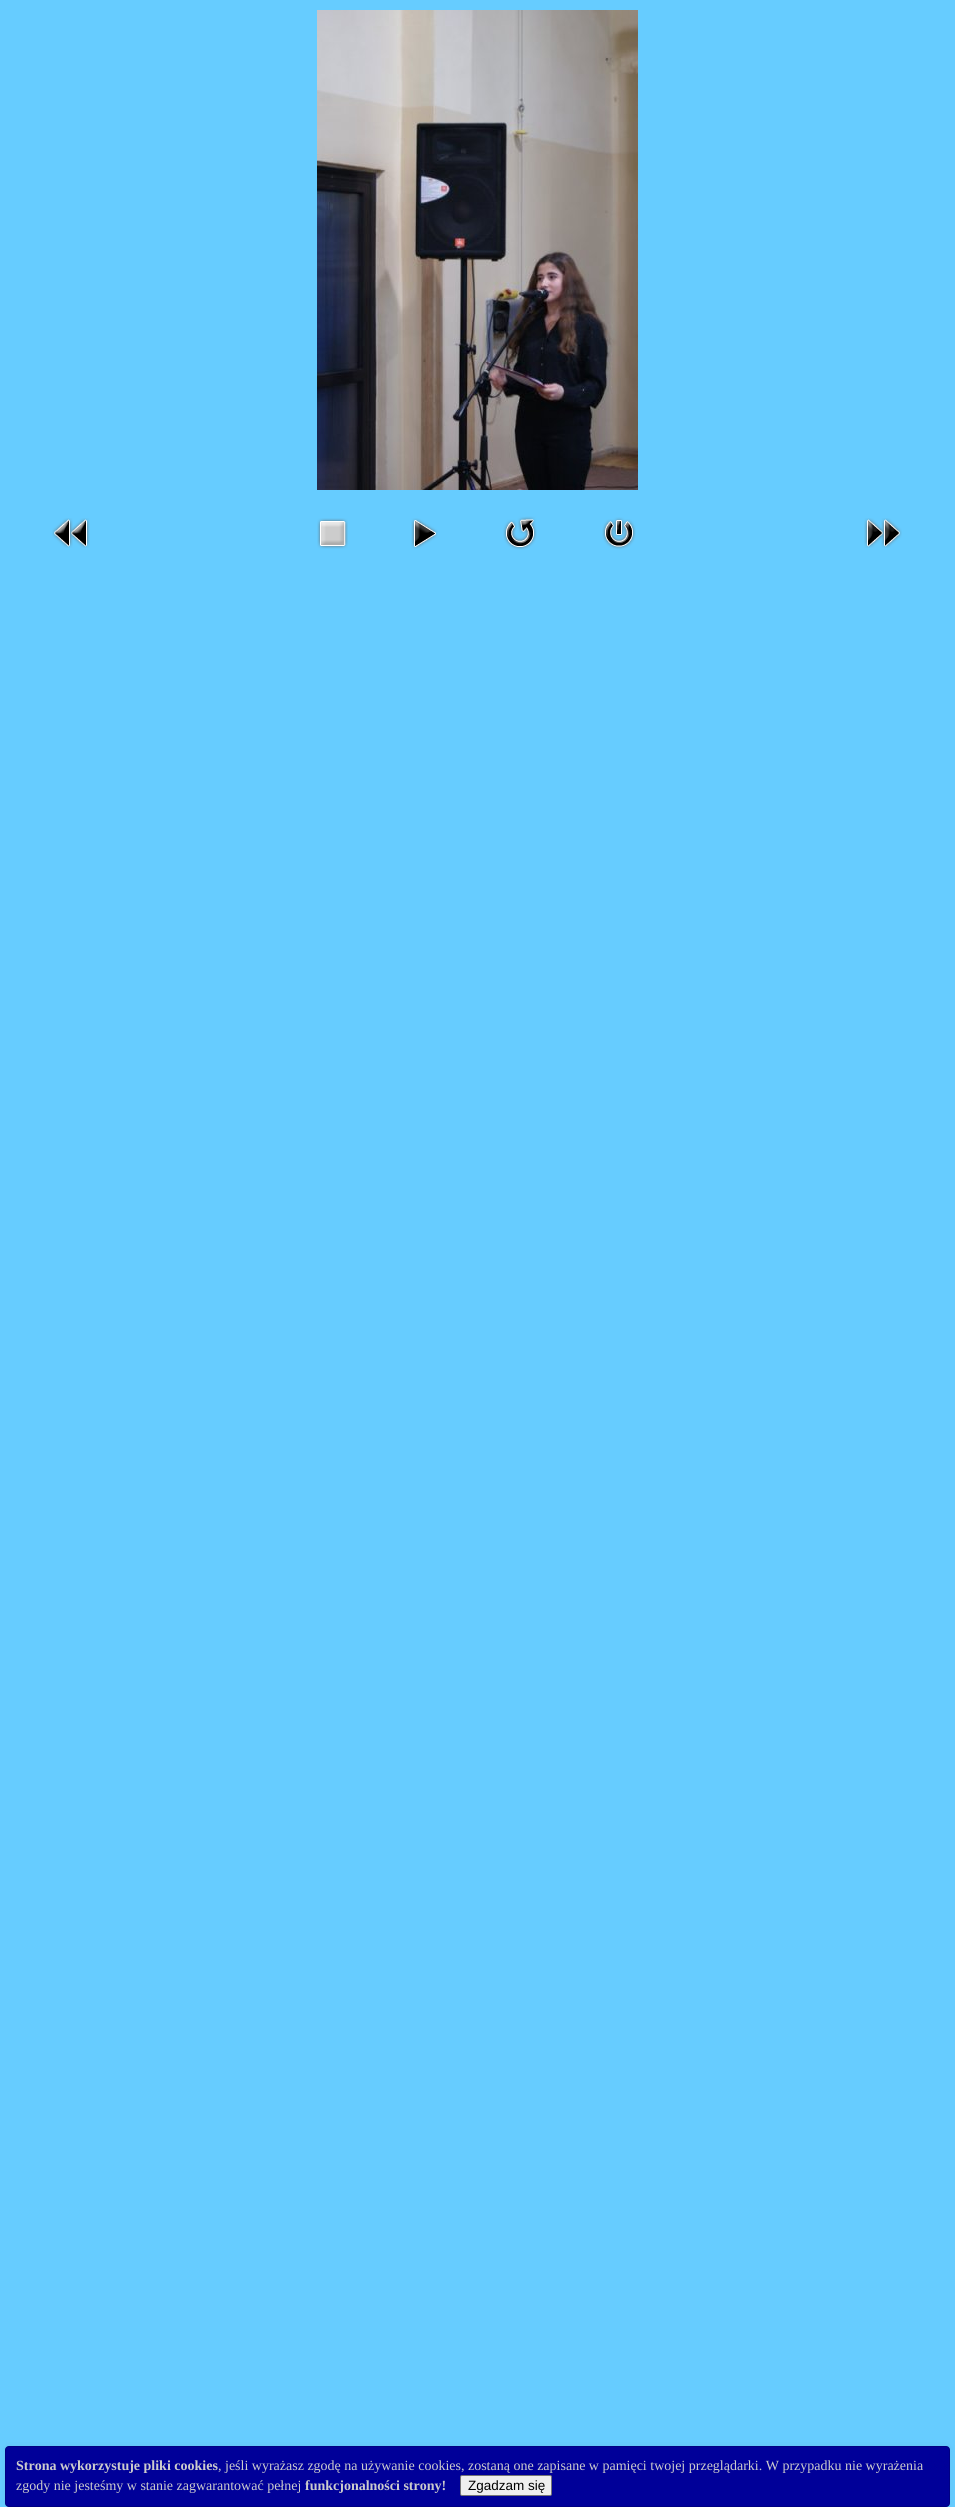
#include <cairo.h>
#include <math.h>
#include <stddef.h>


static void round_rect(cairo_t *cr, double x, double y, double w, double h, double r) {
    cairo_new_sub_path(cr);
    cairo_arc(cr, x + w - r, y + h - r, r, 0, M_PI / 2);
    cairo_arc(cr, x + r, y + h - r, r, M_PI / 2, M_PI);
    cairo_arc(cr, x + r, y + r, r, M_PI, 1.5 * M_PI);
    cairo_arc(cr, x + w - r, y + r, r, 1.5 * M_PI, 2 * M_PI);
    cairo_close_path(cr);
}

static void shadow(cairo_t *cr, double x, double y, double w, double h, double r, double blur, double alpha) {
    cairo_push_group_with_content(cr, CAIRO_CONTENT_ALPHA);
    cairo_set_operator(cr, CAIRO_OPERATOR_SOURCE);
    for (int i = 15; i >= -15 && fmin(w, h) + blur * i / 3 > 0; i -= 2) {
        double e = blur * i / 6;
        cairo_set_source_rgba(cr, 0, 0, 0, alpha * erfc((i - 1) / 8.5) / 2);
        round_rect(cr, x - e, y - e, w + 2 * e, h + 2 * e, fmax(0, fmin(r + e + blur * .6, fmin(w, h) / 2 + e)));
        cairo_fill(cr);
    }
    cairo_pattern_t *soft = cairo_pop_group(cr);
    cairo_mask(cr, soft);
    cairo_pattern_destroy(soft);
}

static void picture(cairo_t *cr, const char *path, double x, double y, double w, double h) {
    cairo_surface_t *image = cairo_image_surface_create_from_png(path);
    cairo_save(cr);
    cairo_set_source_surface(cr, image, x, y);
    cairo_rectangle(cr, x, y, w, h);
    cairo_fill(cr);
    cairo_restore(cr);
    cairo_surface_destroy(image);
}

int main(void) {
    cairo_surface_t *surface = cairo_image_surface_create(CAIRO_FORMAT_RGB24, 955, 2507);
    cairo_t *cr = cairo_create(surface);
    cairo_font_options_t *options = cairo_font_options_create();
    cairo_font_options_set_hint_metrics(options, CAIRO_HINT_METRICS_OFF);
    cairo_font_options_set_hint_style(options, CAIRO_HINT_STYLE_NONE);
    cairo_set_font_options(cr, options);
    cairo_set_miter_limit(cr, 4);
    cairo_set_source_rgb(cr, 0.4, 0.8, 1);
    cairo_paint(cr);
    picture(cr, "img1.png", 317, 10, 321, 480);
    picture(cr, "img2.png", 52, 518, 38, 30);
    picture(cr, "img3.png", 317, 518, 31, 31);
    picture(cr, "img4.png", 411, 518, 27, 31);
    picture(cr, "img5.png", 503, 516, 34, 34);
    picture(cr, "img6.png", 602, 517, 34, 33);
    picture(cr, "img7.png", 864, 518, 38, 30);
    cairo_set_source_rgb(cr, 0, 0, 0);
    shadow(cr, 5, 2446, 945, 61, 4, 3, 0.05);
    cairo_set_source_rgb(cr, 0, 0, 0.6);
    round_rect(cr, 5, 2446, 945, 61, 4);
    cairo_fill(cr);
    round_rect(cr, 5.5, 2446.5, 944, 60, 3.5);
    cairo_set_source_rgba(cr, 0, 0, 0, 0.15);
    cairo_set_line_width(cr, 1);
    cairo_stroke(cr);
    cairo_select_font_face(cr, "Liberation Serif", CAIRO_FONT_SLANT_NORMAL, CAIRO_FONT_WEIGHT_BOLD);
    cairo_set_font_size(cr, 14);
    cairo_set_source_rgb(cr, 0.8, 0.8, 0.8);
    cairo_move_to(cr, 16, 2470);
    cairo_show_text(cr, "Strona wykorzystuje pliki cookies");
    cairo_select_font_face(cr, "Liberation Serif", CAIRO_FONT_SLANT_NORMAL, CAIRO_FONT_WEIGHT_NORMAL);
    cairo_move_to(cr, 218, 2470);
    cairo_show_text(cr, ", jeśli wyrażasz zgodę na używanie cookies, zostaną one zapisane w pamięci twojej przeglądarki. W przypadku nie wyrażenia");
    cairo_move_to(cr, 16, 2490);
    cairo_show_text(cr, "zgody nie jesteśmy w stanie zagwarantować pełnej");
    cairo_select_font_face(cr, "Liberation Serif", CAIRO_FONT_SLANT_NORMAL, CAIRO_FONT_WEIGHT_BOLD);
    cairo_move_to(cr, 305, 2490);
    cairo_show_text(cr, "funkcjonalności strony!");
    cairo_set_source_rgb(cr, 0.937, 0.937, 0.937);
    round_rect(cr, 460.5, 2475.5, 91, 20, 1.5);
    cairo_fill_preserve(cr);
    cairo_set_source_rgb(cr, 0.463, 0.463, 0.463);
    cairo_stroke(cr);
    cairo_select_font_face(cr, "Liberation Sans", CAIRO_FONT_SLANT_NORMAL, CAIRO_FONT_WEIGHT_NORMAL);
    cairo_set_font_size(cr, 13.5);
    cairo_set_source_rgb(cr, 0, 0, 0);
    cairo_move_to(cr, 468, 2490);
    cairo_show_text(cr, "Zgadzam się");
    cairo_surface_write_to_png(surface, "page.png");
    cairo_font_options_destroy(options);
    cairo_destroy(cr);
    cairo_surface_destroy(surface);
    return 0;
}
